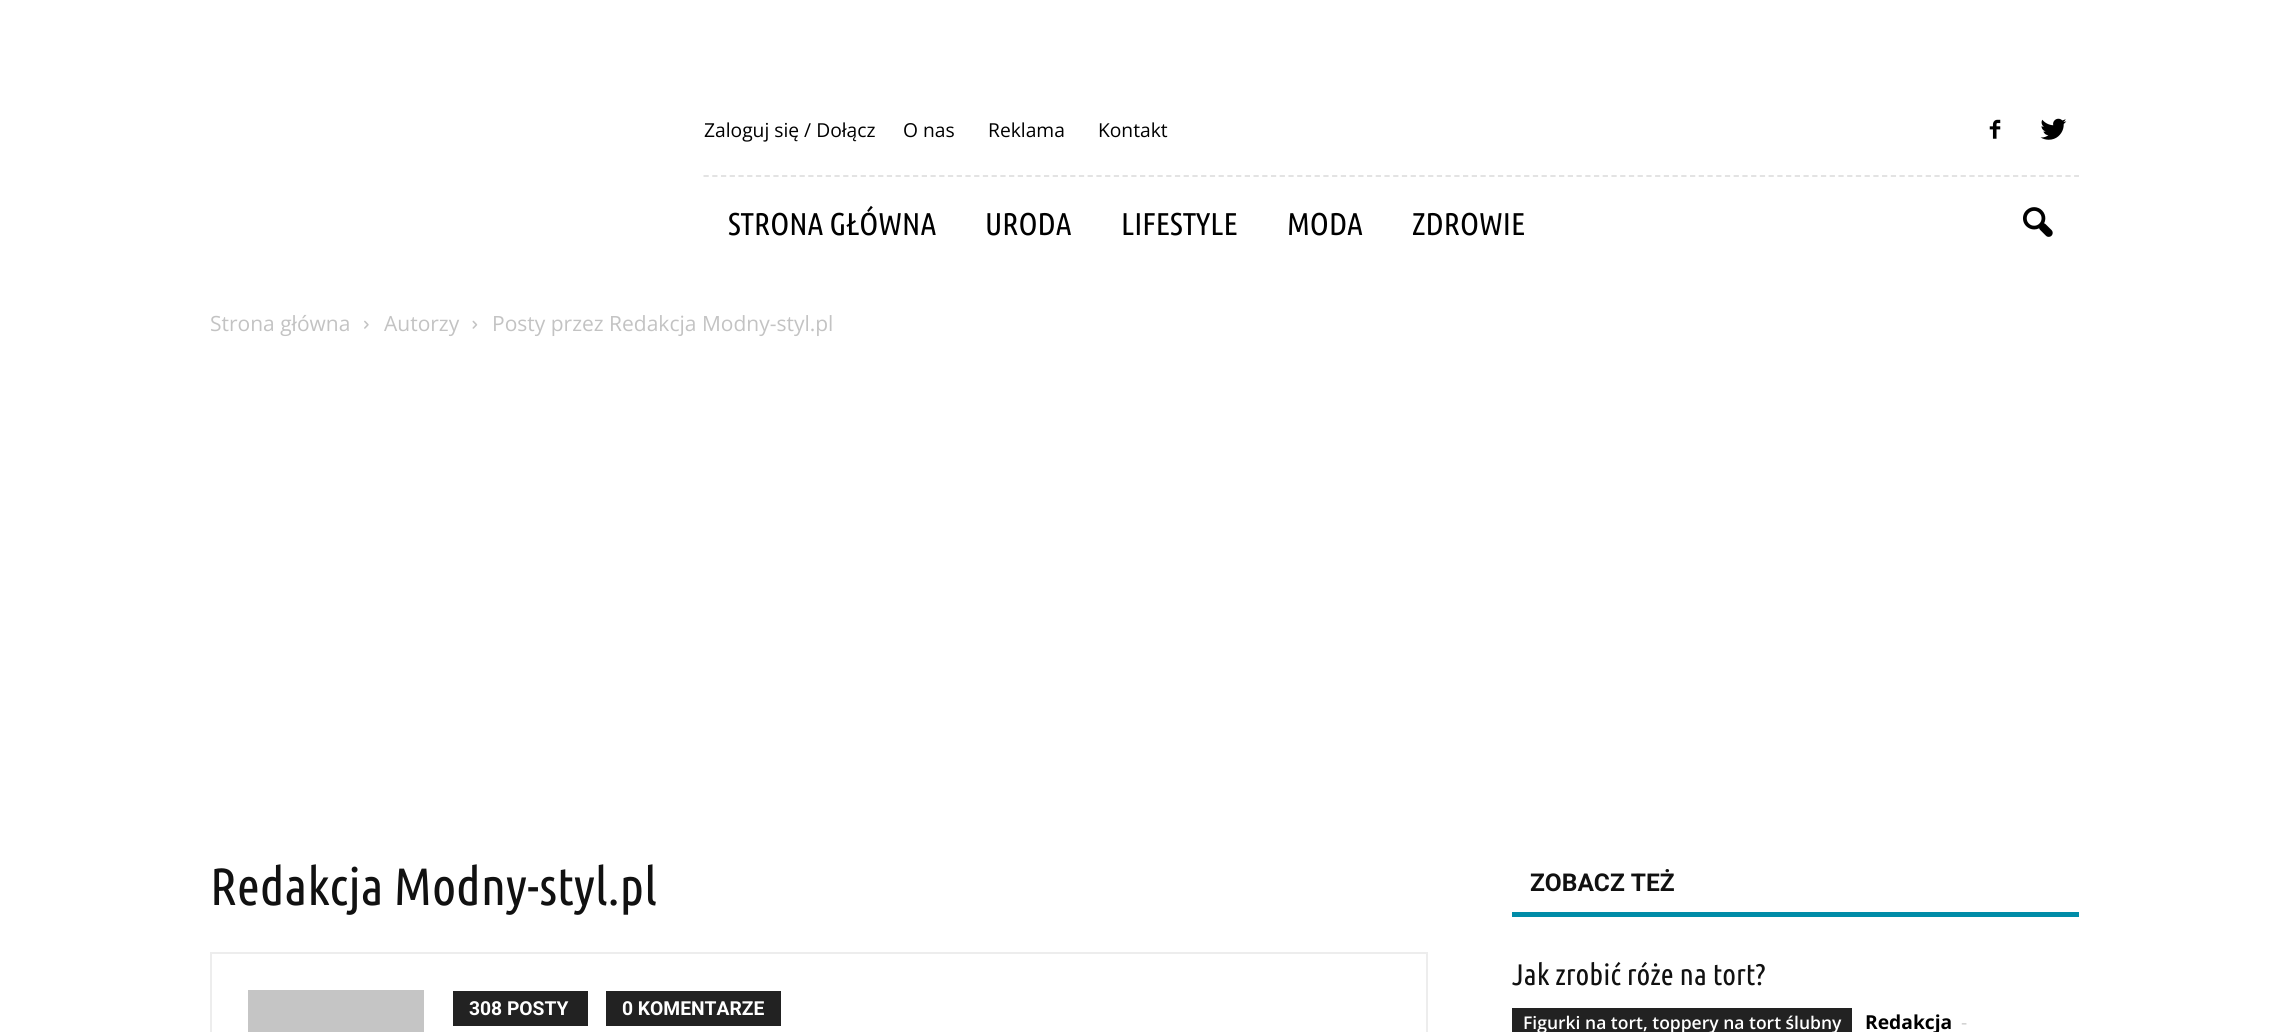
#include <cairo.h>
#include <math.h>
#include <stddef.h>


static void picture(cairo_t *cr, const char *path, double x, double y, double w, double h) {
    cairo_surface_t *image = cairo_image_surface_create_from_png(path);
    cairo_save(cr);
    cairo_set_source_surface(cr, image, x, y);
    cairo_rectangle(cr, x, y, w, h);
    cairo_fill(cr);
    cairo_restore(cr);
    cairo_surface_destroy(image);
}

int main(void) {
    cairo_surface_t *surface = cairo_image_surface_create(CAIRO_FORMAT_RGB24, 2289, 1032);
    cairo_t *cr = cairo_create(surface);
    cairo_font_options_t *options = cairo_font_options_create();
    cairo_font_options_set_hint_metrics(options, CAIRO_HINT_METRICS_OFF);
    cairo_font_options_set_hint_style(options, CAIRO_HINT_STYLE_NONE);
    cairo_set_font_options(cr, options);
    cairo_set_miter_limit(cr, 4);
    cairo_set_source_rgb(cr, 1, 1, 1);
    cairo_paint(cr);
    cairo_new_path(cr);
    cairo_move_to(cr, 703.5, 176);
    cairo_line_to(cr, 2079, 176);
    cairo_set_source_rgb(cr, 0.878, 0.878, 0.878);
    cairo_set_line_width(cr, 1.8);
    cairo_set_dash(cr, (double[]){5.25, 3.48}, 2, 0);
    cairo_stroke(cr);
    cairo_select_font_face(cr, "Open Sans", CAIRO_FONT_SLANT_NORMAL, CAIRO_FONT_WEIGHT_NORMAL);
    cairo_set_font_size(cr, 19.25);
    cairo_set_source_rgb(cr, 0, 0, 0);
    cairo_move_to(cr, 704, 137);
    cairo_show_text(cr, "Zaloguj się / Dołącz");
    cairo_move_to(cr, 903, 137);
    cairo_show_text(cr, "O nas");
    cairo_move_to(cr, 988, 137);
    cairo_show_text(cr, "Reklama");
    cairo_move_to(cr, 1098, 137);
    cairo_show_text(cr, "Kontakt");
    picture(cr, "img1.png", 1989, 119, 12, 20);
    picture(cr, "img2.png", 2040, 118, 27, 22);
    cairo_select_font_face(cr, "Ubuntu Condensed", CAIRO_FONT_SLANT_NORMAL, CAIRO_FONT_WEIGHT_NORMAL);
    cairo_set_font_size(cr, 31.5);
    cairo_move_to(cr, 728, 235);
    cairo_show_text(cr, "STRONA GŁÓWNA");
    cairo_move_to(cr, 985, 235);
    cairo_show_text(cr, "URODA");
    cairo_move_to(cr, 1121, 235);
    cairo_show_text(cr, "LIFESTYLE");
    cairo_move_to(cr, 1287, 235);
    cairo_show_text(cr, "MODA");
    cairo_move_to(cr, 1412, 235);
    cairo_show_text(cr, "ZDROWIE");
    picture(cr, "img3.png", 2023, 207, 30, 30);
    cairo_select_font_face(cr, "Open Sans", CAIRO_FONT_SLANT_NORMAL, CAIRO_FONT_WEIGHT_NORMAL);
    cairo_set_font_size(cr, 21);
    cairo_set_source_rgb(cr, 0.765, 0.765, 0.765);
    cairo_move_to(cr, 210, 331);
    cairo_show_text(cr, "Strona główna");
    picture(cr, "img4.png", 364, 320, 5, 9);
    cairo_move_to(cr, 384, 331);
    cairo_show_text(cr, "Autorzy");
    picture(cr, "img5.png", 472, 320, 6, 9);
    cairo_move_to(cr, 492, 331);
    cairo_show_text(cr, "Posty przez Redakcja Modny-styl.pl");
    cairo_select_font_face(cr, "Ubuntu Condensed", CAIRO_FONT_SLANT_NORMAL, CAIRO_FONT_WEIGHT_NORMAL);
    cairo_set_font_size(cr, 52.5);
    cairo_set_source_rgb(cr, 0.067, 0.067, 0.067);
    cairo_move_to(cr, 210, 905);
    cairo_show_text(cr, "Redakcja Modny-styl.pl");
    cairo_rectangle(cr, 211, 953, 1216, 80);
    cairo_set_source_rgb(cr, 0.929, 0.929, 0.929);
    cairo_set_line_width(cr, 2);
    cairo_set_dash(cr, NULL, 0, 0);
    cairo_stroke(cr);
    cairo_set_source_rgb(cr, 0.773, 0.773, 0.773);
    cairo_rectangle(cr, 248, 990, 176, 42);
    cairo_fill(cr);
    cairo_set_source_rgb(cr, 0.133, 0.133, 0.133);
    cairo_rectangle(cr, 453, 991, 135, 35);
    cairo_fill(cr);
    cairo_select_font_face(cr, "Roboto", CAIRO_FONT_SLANT_NORMAL, CAIRO_FONT_WEIGHT_BOLD);
    cairo_set_font_size(cr, 19.25);
    cairo_set_source_rgb(cr, 1, 1, 1);
    cairo_move_to(cr, 469, 1015);
    cairo_show_text(cr, "308 POSTY");
    cairo_set_source_rgb(cr, 0.133, 0.133, 0.133);
    cairo_rectangle(cr, 606, 991, 175, 35);
    cairo_fill(cr);
    cairo_set_source_rgb(cr, 1, 1, 1);
    cairo_move_to(cr, 622, 1015);
    cairo_show_text(cr, "0 KOMENTARZE");
    cairo_set_source_rgb(cr, 0, 0.549, 0.659);
    cairo_rectangle(cr, 1512, 912, 567, 5);
    cairo_fill(cr);
    cairo_set_font_size(cr, 24.5);
    cairo_set_source_rgb(cr, 0.067, 0.067, 0.067);
    cairo_move_to(cr, 1530, 891);
    cairo_show_text(cr, "ZOBACZ TEŻ");
    cairo_select_font_face(cr, "Ubuntu Condensed", CAIRO_FONT_SLANT_NORMAL, CAIRO_FONT_WEIGHT_NORMAL);
    cairo_set_font_size(cr, 29.75);
    cairo_move_to(cr, 1512, 985);
    cairo_show_text(cr, "Jak zrobić róże na tort?");
    cairo_set_source_rgb(cr, 0.133, 0.133, 0.133);
    cairo_rectangle(cr, 1512, 1008, 340, 24);
    cairo_fill(cr);
    cairo_select_font_face(cr, "Open Sans SemiBold", CAIRO_FONT_SLANT_NORMAL, CAIRO_FONT_WEIGHT_NORMAL);
    cairo_set_font_size(cr, 17.5);
    cairo_set_source_rgb(cr, 1, 1, 1);
    cairo_move_to(cr, 1523, 1029);
    cairo_show_text(cr, "Figurki na tort, toppery na tort ślubny");
    cairo_select_font_face(cr, "Open Sans", CAIRO_FONT_SLANT_NORMAL, CAIRO_FONT_WEIGHT_BOLD);
    cairo_set_font_size(cr, 19.25);
    cairo_set_source_rgb(cr, 0, 0, 0);
    cairo_move_to(cr, 1865, 1029);
    cairo_show_text(cr, "Redakcja");
    cairo_select_font_face(cr, "Open Sans", CAIRO_FONT_SLANT_NORMAL, CAIRO_FONT_WEIGHT_NORMAL);
    cairo_set_source_rgb(cr, 0.8, 0.8, 0.8);
    cairo_move_to(cr, 1961, 1029);
    cairo_show_text(cr, "-");
    cairo_surface_write_to_png(surface, "page.png");
    cairo_font_options_destroy(options);
    cairo_destroy(cr);
    cairo_surface_destroy(surface);
    return 0;
}
